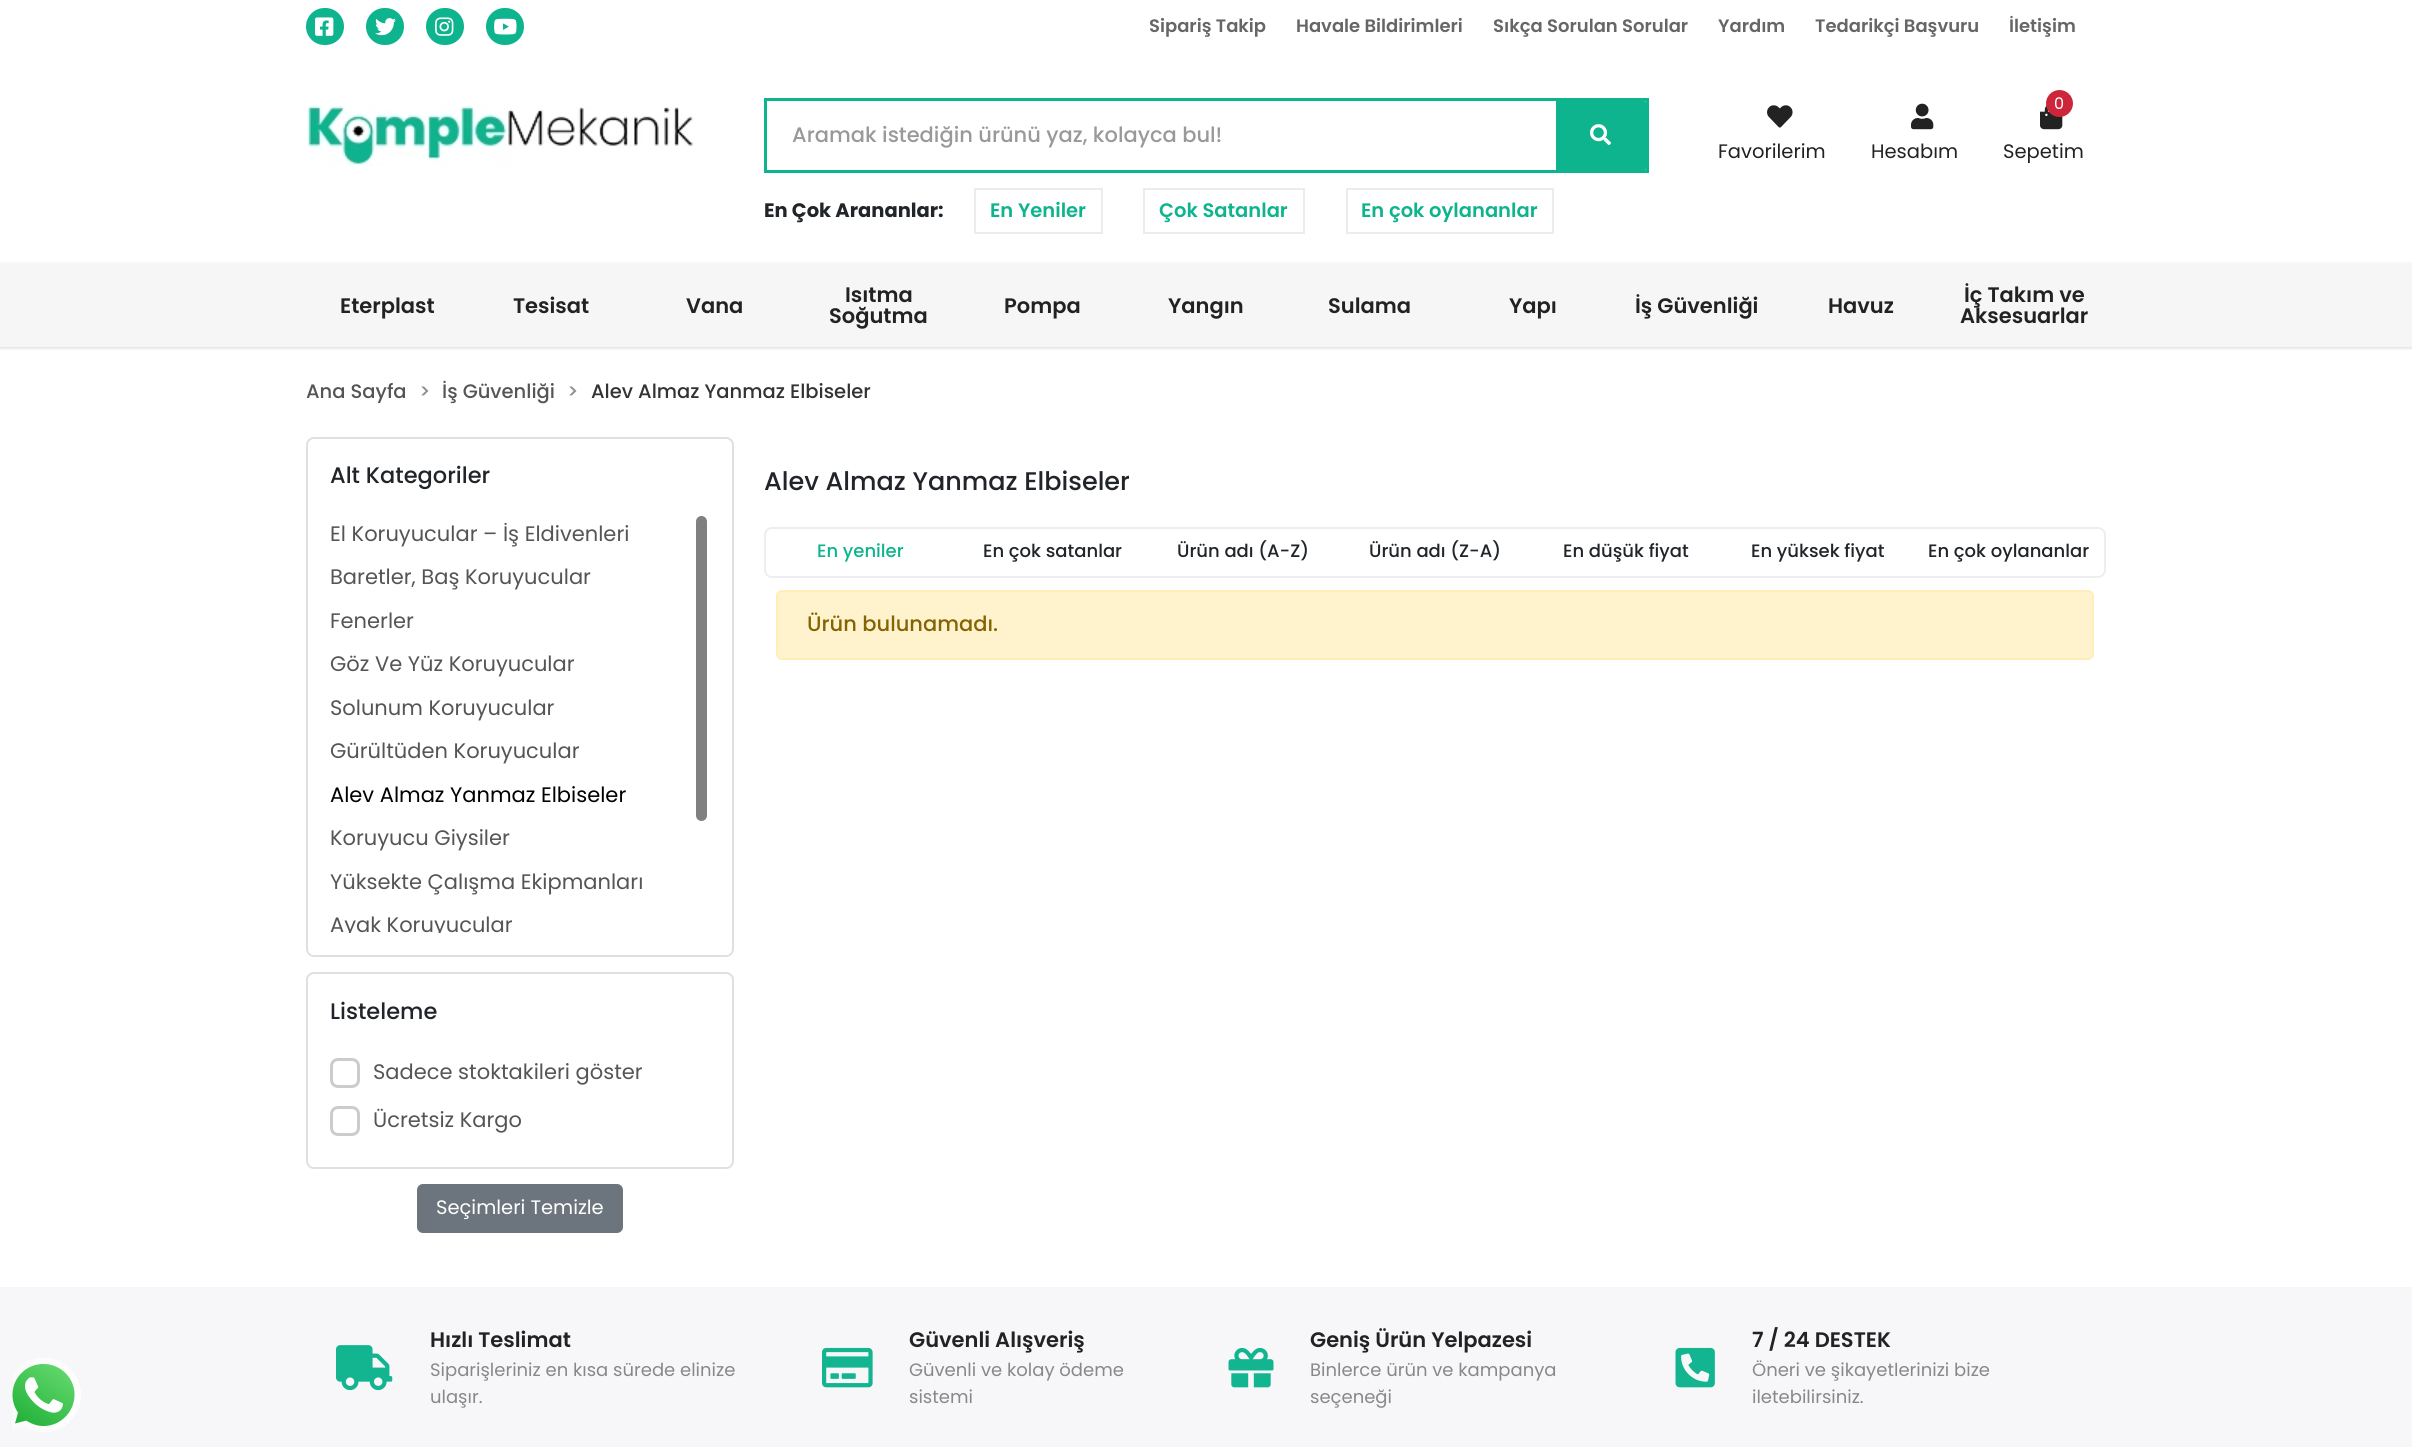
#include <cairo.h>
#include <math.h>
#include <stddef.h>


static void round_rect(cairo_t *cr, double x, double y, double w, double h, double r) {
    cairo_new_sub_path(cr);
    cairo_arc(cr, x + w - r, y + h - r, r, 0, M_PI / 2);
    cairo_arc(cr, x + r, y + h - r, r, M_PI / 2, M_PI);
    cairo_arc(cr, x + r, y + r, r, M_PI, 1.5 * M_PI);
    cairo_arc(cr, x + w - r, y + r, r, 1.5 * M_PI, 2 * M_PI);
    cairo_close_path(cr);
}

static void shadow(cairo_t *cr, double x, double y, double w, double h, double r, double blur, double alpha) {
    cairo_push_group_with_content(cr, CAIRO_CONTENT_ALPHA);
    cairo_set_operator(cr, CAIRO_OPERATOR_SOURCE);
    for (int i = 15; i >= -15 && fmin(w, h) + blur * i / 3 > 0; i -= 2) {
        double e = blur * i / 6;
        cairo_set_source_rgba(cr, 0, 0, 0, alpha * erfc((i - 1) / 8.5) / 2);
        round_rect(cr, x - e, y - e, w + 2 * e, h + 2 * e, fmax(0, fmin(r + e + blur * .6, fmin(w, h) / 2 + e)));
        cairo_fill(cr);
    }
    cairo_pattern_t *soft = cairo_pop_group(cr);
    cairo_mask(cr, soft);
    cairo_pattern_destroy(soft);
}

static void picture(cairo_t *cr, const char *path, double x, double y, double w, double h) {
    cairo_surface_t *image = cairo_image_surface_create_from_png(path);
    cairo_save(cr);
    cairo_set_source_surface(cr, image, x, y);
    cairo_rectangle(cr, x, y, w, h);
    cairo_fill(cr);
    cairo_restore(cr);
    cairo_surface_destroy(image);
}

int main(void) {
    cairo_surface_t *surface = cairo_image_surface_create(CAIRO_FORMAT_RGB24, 2412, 1447);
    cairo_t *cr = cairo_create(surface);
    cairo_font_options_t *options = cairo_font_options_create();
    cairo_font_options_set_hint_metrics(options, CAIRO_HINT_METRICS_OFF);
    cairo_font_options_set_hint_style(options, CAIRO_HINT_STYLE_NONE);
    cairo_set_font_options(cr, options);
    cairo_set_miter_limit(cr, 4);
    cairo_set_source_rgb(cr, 1, 1, 1);
    cairo_paint(cr);
    cairo_set_source_rgb(cr, 0.055, 0.706, 0.553);
    round_rect(cr, 306, 8, 38, 37, 18.5);
    cairo_fill(cr);
    picture(cr, "img1.png", 315, 17, 19, 19);
    round_rect(cr, 366, 8, 38, 37, 18.5);
    cairo_fill(cr);
    picture(cr, "img2.png", 375, 18, 21, 18);
    round_rect(cr, 426, 8, 38, 37, 18.5);
    cairo_fill(cr);
    picture(cr, "img3.png", 435, 17, 19, 19);
    round_rect(cr, 486, 8, 38, 37, 18.5);
    cairo_fill(cr);
    picture(cr, "img4.png", 494, 18, 23, 17);
    cairo_select_font_face(cr, "Poppins SemiBold", CAIRO_FONT_SLANT_NORMAL, CAIRO_FONT_WEIGHT_NORMAL);
    cairo_set_font_size(cr, 18);
    cairo_set_source_rgb(cr, 0.4, 0.4, 0.4);
    cairo_move_to(cr, 1149, 32);
    cairo_show_text(cr, "Sipariş Takip");
    cairo_move_to(cr, 1296, 32);
    cairo_show_text(cr, "Havale Bildirimleri");
    cairo_move_to(cr, 1493, 32);
    cairo_show_text(cr, "Sıkça Sorulan Sorular");
    cairo_move_to(cr, 1718, 32);
    cairo_show_text(cr, "Yardım");
    cairo_move_to(cr, 1815, 32);
    cairo_show_text(cr, "Tedarikçi Başvuru");
    cairo_move_to(cr, 2009, 32);
    cairo_show_text(cr, "İletişim");
    picture(cr, "img5.png", 307, 105, 387, 61);
    cairo_rectangle(cr, 765.5, 99.5, 882, 72);
    cairo_set_source_rgb(cr, 0.055, 0.706, 0.553);
    cairo_set_line_width(cr, 3);
    cairo_stroke(cr);
    cairo_select_font_face(cr, "Poppins Medium", CAIRO_FONT_SLANT_NORMAL, CAIRO_FONT_WEIGHT_NORMAL);
    cairo_set_font_size(cr, 21);
    cairo_set_source_rgb(cr, 0.6, 0.6, 0.6);
    cairo_move_to(cr, 792, 142);
    cairo_show_text(cr, "Aramak istediğin ürünü yaz, kolayca bul!");
    cairo_set_source_rgb(cr, 0.055, 0.706, 0.553);
    cairo_new_path(cr);
    cairo_move_to(cr, 1556, 101);
    cairo_line_to(cr, 1644.5, 101);
    cairo_curve_to(cr, 1645.5, 101, 1646, 101.5, 1646, 102.5);
    cairo_line_to(cr, 1646, 168.5);
    cairo_curve_to(cr, 1646, 169.5, 1645.5, 170, 1644.5, 170);
    cairo_line_to(cr, 1556, 170);
    cairo_close_path(cr);
    cairo_fill(cr);
    picture(cr, "img6.png", 1590, 124, 21, 22);
    cairo_select_font_face(cr, "Poppins", CAIRO_FONT_SLANT_NORMAL, CAIRO_FONT_WEIGHT_BOLD);
    cairo_set_font_size(cr, 19.5);
    cairo_set_source_rgb(cr, 0.129, 0.145, 0.161);
    cairo_move_to(cr, 764, 217);
    cairo_show_text(cr, "En Çok Arananlar:");
    cairo_rectangle(cr, 975, 189, 127, 44);
    cairo_set_source_rgb(cr, 0.922, 0.922, 0.922);
    cairo_set_line_width(cr, 2);
    cairo_stroke(cr);
    cairo_select_font_face(cr, "Poppins SemiBold", CAIRO_FONT_SLANT_NORMAL, CAIRO_FONT_WEIGHT_NORMAL);
    cairo_set_source_rgb(cr, 0.055, 0.706, 0.553);
    cairo_move_to(cr, 990, 217);
    cairo_show_text(cr, "En Yeniler");
    cairo_rectangle(cr, 1144, 189, 160, 44);
    cairo_set_source_rgb(cr, 0.922, 0.922, 0.922);
    cairo_stroke(cr);
    cairo_set_source_rgb(cr, 0.055, 0.706, 0.553);
    cairo_move_to(cr, 1159, 217);
    cairo_show_text(cr, "Çok Satanlar");
    cairo_rectangle(cr, 1347, 189, 206, 44);
    cairo_set_source_rgb(cr, 0.922, 0.922, 0.922);
    cairo_stroke(cr);
    cairo_set_source_rgb(cr, 0.055, 0.706, 0.553);
    cairo_move_to(cr, 1361, 217);
    cairo_show_text(cr, "En çok oylananlar");
    picture(cr, "img7.png", 1767, 105, 26, 23);
    cairo_select_font_face(cr, "Poppins", CAIRO_FONT_SLANT_NORMAL, CAIRO_FONT_WEIGHT_NORMAL);
    cairo_set_source_rgb(cr, 0.133, 0.133, 0.133);
    cairo_move_to(cr, 1718, 158);
    cairo_show_text(cr, "Favorilerim");
    picture(cr, "img8.png", 1911, 103, 23, 27);
    cairo_move_to(cr, 1871, 158);
    cairo_show_text(cr, "Hesabım");
    picture(cr, "img9.png", 2040, 105, 23, 25);
    cairo_set_source_rgb(cr, 0.804, 0.149, 0.227);
    cairo_arc(cr, 2059.5, 103.5, 13.5, 0, 2 * M_PI);
    cairo_fill(cr);
    cairo_set_font_size(cr, 16);
    cairo_set_source_rgb(cr, 1, 1, 1);
    cairo_move_to(cr, 2054, 109);
    cairo_show_text(cr, "0");
    cairo_set_font_size(cr, 19.5);
    cairo_set_source_rgb(cr, 0.133, 0.133, 0.133);
    cairo_move_to(cr, 2003, 158);
    cairo_show_text(cr, "Sepetim");
    cairo_set_source_rgb(cr, 0, 0, 0);
    shadow(cr, 0, 264, 2412, 84, 0, 1.5, 0.16);
    cairo_set_source_rgb(cr, 0.961, 0.961, 0.961);
    cairo_rectangle(cr, 0, 263, 2412, 84);
    cairo_fill(cr);
    cairo_select_font_face(cr, "Poppins SemiBold", CAIRO_FONT_SLANT_NORMAL, CAIRO_FONT_WEIGHT_NORMAL);
    cairo_set_font_size(cr, 21);
    cairo_set_source_rgb(cr, 0.133, 0.133, 0.133);
    cairo_move_to(cr, 340, 313);
    cairo_show_text(cr, "Eterplast");
    cairo_move_to(cr, 513, 313);
    cairo_show_text(cr, "Tesisat");
    cairo_move_to(cr, 686, 313);
    cairo_show_text(cr, "Vana");
    cairo_move_to(cr, 845, 302);
    cairo_show_text(cr, "Isıtma");
    cairo_move_to(cr, 829, 323);
    cairo_show_text(cr, "Soğutma");
    cairo_move_to(cr, 1004, 313);
    cairo_show_text(cr, "Pompa");
    cairo_move_to(cr, 1168, 313);
    cairo_show_text(cr, "Yangın");
    cairo_move_to(cr, 1328, 313);
    cairo_show_text(cr, "Sulama");
    cairo_move_to(cr, 1509, 313);
    cairo_show_text(cr, "Yapı");
    cairo_move_to(cr, 1635, 313);
    cairo_show_text(cr, "İş Güvenliği");
    cairo_move_to(cr, 1828, 313);
    cairo_show_text(cr, "Havuz");
    cairo_move_to(cr, 1964, 302);
    cairo_show_text(cr, "İç Takım ve");
    cairo_move_to(cr, 1960, 323);
    cairo_show_text(cr, "Aksesuarlar");
    cairo_select_font_face(cr, "Poppins Medium", CAIRO_FONT_SLANT_NORMAL, CAIRO_FONT_WEIGHT_NORMAL);
    cairo_set_font_size(cr, 19.5);
    cairo_set_source_rgb(cr, 0.333, 0.333, 0.333);
    cairo_move_to(cr, 306, 398);
    cairo_show_text(cr, "Ana Sayfa");
    cairo_set_source_rgb(cr, 0.557, 0.557, 0.557);
    cairo_move_to(cr, 419, 398);
    cairo_show_text(cr, ">");
    cairo_set_source_rgb(cr, 0.333, 0.333, 0.333);
    cairo_move_to(cr, 442, 398);
    cairo_show_text(cr, "İş Güvenliği");
    cairo_set_source_rgb(cr, 0.557, 0.557, 0.557);
    cairo_move_to(cr, 567, 398);
    cairo_show_text(cr, ">");
    cairo_set_source_rgb(cr, 0.2, 0.2, 0.2);
    cairo_move_to(cr, 591, 398);
    cairo_show_text(cr, "Alev Almaz Yanmaz Elbiseler");
    round_rect(cr, 307, 438, 426, 518, 7);
    cairo_set_source_rgb(cr, 0.878, 0.878, 0.878);
    cairo_stroke(cr);
    cairo_set_font_size(cr, 22.5);
    cairo_set_source_rgb(cr, 0.129, 0.145, 0.161);
    cairo_move_to(cr, 330, 483);
    cairo_show_text(cr, "Alt Kategoriler");
    cairo_select_font_face(cr, "Poppins", CAIRO_FONT_SLANT_NORMAL, CAIRO_FONT_WEIGHT_NORMAL);
    cairo_set_font_size(cr, 21);
    cairo_set_source_rgb(cr, 0.333, 0.333, 0.333);
    cairo_move_to(cr, 330, 541);
    cairo_show_text(cr, "El Koruyucular – İş Eldivenleri");
    cairo_move_to(cr, 330, 584);
    cairo_show_text(cr, "Baretler, Baş Koruyucular");
    cairo_move_to(cr, 330, 628);
    cairo_show_text(cr, "Fenerler");
    cairo_move_to(cr, 330, 671);
    cairo_show_text(cr, "Göz Ve Yüz Koruyucular");
    cairo_move_to(cr, 330, 715);
    cairo_show_text(cr, "Solunum Koruyucular");
    cairo_move_to(cr, 330, 758);
    cairo_show_text(cr, "Gürültüden Koruyucular");
    cairo_set_source_rgb(cr, 0, 0, 0);
    cairo_move_to(cr, 330, 802);
    cairo_show_text(cr, "Alev Almaz Yanmaz Elbiseler");
    cairo_set_source_rgb(cr, 0.333, 0.333, 0.333);
    cairo_move_to(cr, 330, 845);
    cairo_show_text(cr, "Koruyucu Giysiler");
    cairo_move_to(cr, 330, 889);
    cairo_show_text(cr, "Yüksekte Çalışma Ekipmanları");
    cairo_save(cr);
    cairo_rectangle(cr, 330, 513, 380, 420);
    cairo_clip(cr);
    cairo_move_to(cr, 330, 932);
    cairo_show_text(cr, "Ayak Koruyucular");
    cairo_restore(cr);
    cairo_set_source_rgb(cr, 0.502, 0.502, 0.502);
    round_rect(cr, 696, 516, 11, 305, 5.5);
    cairo_fill(cr);
    round_rect(cr, 307, 973, 426, 195, 7);
    cairo_set_source_rgb(cr, 0.878, 0.878, 0.878);
    cairo_stroke(cr);
    cairo_select_font_face(cr, "Poppins Medium", CAIRO_FONT_SLANT_NORMAL, CAIRO_FONT_WEIGHT_NORMAL);
    cairo_set_font_size(cr, 22.5);
    cairo_set_source_rgb(cr, 0.129, 0.145, 0.161);
    cairo_move_to(cr, 330, 1019);
    cairo_show_text(cr, "Listeleme");
    round_rect(cr, 331.5, 1059.5, 27, 27, 6.5);
    cairo_set_source_rgb(cr, 0.8, 0.8, 0.8);
    cairo_set_line_width(cr, 3);
    cairo_stroke(cr);
    cairo_select_font_face(cr, "Poppins", CAIRO_FONT_SLANT_NORMAL, CAIRO_FONT_WEIGHT_NORMAL);
    cairo_set_font_size(cr, 21);
    cairo_set_source_rgb(cr, 0.333, 0.333, 0.333);
    cairo_move_to(cr, 373, 1079);
    cairo_show_text(cr, "Sadece stoktakileri göster");
    round_rect(cr, 331.5, 1107.5, 27, 27, 6.5);
    cairo_set_source_rgb(cr, 0.8, 0.8, 0.8);
    cairo_stroke(cr);
    cairo_set_source_rgb(cr, 0.333, 0.333, 0.333);
    cairo_move_to(cr, 373, 1127);
    cairo_show_text(cr, "Ücretsiz Kargo");
    cairo_set_source_rgb(cr, 0.424, 0.459, 0.49);
    round_rect(cr, 418, 1185, 204, 47, 5);
    cairo_fill_preserve(cr);
    cairo_set_line_width(cr, 2);
    cairo_stroke(cr);
    cairo_set_font_size(cr, 19.5);
    cairo_set_source_rgb(cr, 1, 1, 1);
    cairo_move_to(cr, 436, 1214);
    cairo_show_text(cr, "Seçimleri Temizle");
    cairo_select_font_face(cr, "Poppins Medium", CAIRO_FONT_SLANT_NORMAL, CAIRO_FONT_WEIGHT_NORMAL);
    cairo_set_font_size(cr, 25.5);
    cairo_set_source_rgb(cr, 0.129, 0.145, 0.161);
    cairo_move_to(cr, 764, 490);
    cairo_show_text(cr, "Alev Almaz Yanmaz Elbiseler");
    round_rect(cr, 765, 528, 1340, 49, 7);
    cairo_set_source_rgb(cr, 0.933, 0.933, 0.933);
    cairo_stroke(cr);
    cairo_set_font_size(cr, 18);
    cairo_set_source_rgb(cr, 0.055, 0.706, 0.553);
    cairo_move_to(cr, 817, 557);
    cairo_show_text(cr, "En yeniler");
    cairo_set_source_rgb(cr, 0.129, 0.145, 0.161);
    cairo_move_to(cr, 983, 557);
    cairo_show_text(cr, "En çok satanlar");
    cairo_move_to(cr, 1177, 557);
    cairo_show_text(cr, "Ürün adı (A-Z)");
    cairo_move_to(cr, 1369, 557);
    cairo_show_text(cr, "Ürün adı (Z-A)");
    cairo_move_to(cr, 1563, 557);
    cairo_show_text(cr, "En düşük fiyat");
    cairo_move_to(cr, 1751, 557);
    cairo_show_text(cr, "En yüksek fiyat");
    cairo_move_to(cr, 1928, 557);
    cairo_show_text(cr, "En çok oylananlar");
    cairo_set_source_rgb(cr, 1, 0.953, 0.804);
    round_rect(cr, 777, 591, 1316, 68, 5);
    cairo_fill_preserve(cr);
    cairo_set_source_rgb(cr, 1, 0.933, 0.729);
    cairo_stroke(cr);
    cairo_set_font_size(cr, 21);
    cairo_set_source_rgb(cr, 0.522, 0.392, 0.016);
    cairo_move_to(cr, 807, 631);
    cairo_show_text(cr, "Ürün bulunamadı.");
    cairo_set_source_rgb(cr, 0.965, 0.965, 0.973);
    cairo_rectangle(cr, 0, 1287, 2412, 160);
    cairo_fill(cr);
    picture(cr, "img10.png", 12, 1358, 69, 74);
    picture(cr, "img11.png", 336, 1345, 57, 46);
    cairo_select_font_face(cr, "Poppins SemiBold", CAIRO_FONT_SLANT_NORMAL, CAIRO_FONT_WEIGHT_NORMAL);
    cairo_set_source_rgb(cr, 0.133, 0.133, 0.133);
    cairo_move_to(cr, 430, 1347);
    cairo_show_text(cr, "Hızlı Teslimat");
    cairo_select_font_face(cr, "Poppins", CAIRO_FONT_SLANT_NORMAL, CAIRO_FONT_WEIGHT_NORMAL);
    cairo_set_font_size(cr, 18);
    cairo_set_source_rgb(cr, 0.533, 0.533, 0.533);
    cairo_move_to(cr, 430, 1376);
    cairo_show_text(cr, "Siparişleriniz en kısa sürede elinize");
    cairo_move_to(cr, 430, 1403);
    cairo_show_text(cr, "ulaşır.");
    picture(cr, "img12.png", 822, 1347, 51, 41);
    cairo_select_font_face(cr, "Poppins SemiBold", CAIRO_FONT_SLANT_NORMAL, CAIRO_FONT_WEIGHT_NORMAL);
    cairo_set_font_size(cr, 21);
    cairo_set_source_rgb(cr, 0.133, 0.133, 0.133);
    cairo_move_to(cr, 909, 1347);
    cairo_show_text(cr, "Güvenli Alışveriş");
    cairo_select_font_face(cr, "Poppins", CAIRO_FONT_SLANT_NORMAL, CAIRO_FONT_WEIGHT_NORMAL);
    cairo_set_font_size(cr, 18);
    cairo_set_source_rgb(cr, 0.533, 0.533, 0.533);
    cairo_move_to(cr, 909, 1376);
    cairo_show_text(cr, "Güvenli ve kolay ödeme");
    cairo_move_to(cr, 909, 1403);
    cairo_show_text(cr, "sistemi");
    picture(cr, "img13.png", 1228, 1347, 46, 41);
    cairo_select_font_face(cr, "Poppins SemiBold", CAIRO_FONT_SLANT_NORMAL, CAIRO_FONT_WEIGHT_NORMAL);
    cairo_set_font_size(cr, 21);
    cairo_set_source_rgb(cr, 0.133, 0.133, 0.133);
    cairo_move_to(cr, 1310, 1347);
    cairo_show_text(cr, "Geniş Ürün Yelpazesi");
    cairo_select_font_face(cr, "Poppins", CAIRO_FONT_SLANT_NORMAL, CAIRO_FONT_WEIGHT_NORMAL);
    cairo_set_font_size(cr, 18);
    cairo_set_source_rgb(cr, 0.533, 0.533, 0.533);
    cairo_move_to(cr, 1310, 1376);
    cairo_show_text(cr, "Binlerce ürün ve kampanya");
    cairo_move_to(cr, 1310, 1403);
    cairo_show_text(cr, "seçeneği");
    picture(cr, "img14.png", 1675, 1347, 40, 41);
    cairo_select_font_face(cr, "Poppins SemiBold", CAIRO_FONT_SLANT_NORMAL, CAIRO_FONT_WEIGHT_NORMAL);
    cairo_set_font_size(cr, 21);
    cairo_set_source_rgb(cr, 0.133, 0.133, 0.133);
    cairo_move_to(cr, 1752, 1347);
    cairo_show_text(cr, "7 / 24 DESTEK");
    cairo_select_font_face(cr, "Poppins", CAIRO_FONT_SLANT_NORMAL, CAIRO_FONT_WEIGHT_NORMAL);
    cairo_set_font_size(cr, 18);
    cairo_set_source_rgb(cr, 0.533, 0.533, 0.533);
    cairo_move_to(cr, 1752, 1376);
    cairo_show_text(cr, "Öneri ve şikayetlerinizi bize");
    cairo_move_to(cr, 1752, 1403);
    cairo_show_text(cr, "iletebilirsiniz.");
    cairo_surface_write_to_png(surface, "page.png");
    cairo_font_options_destroy(options);
    cairo_destroy(cr);
    cairo_surface_destroy(surface);
    return 0;
}
